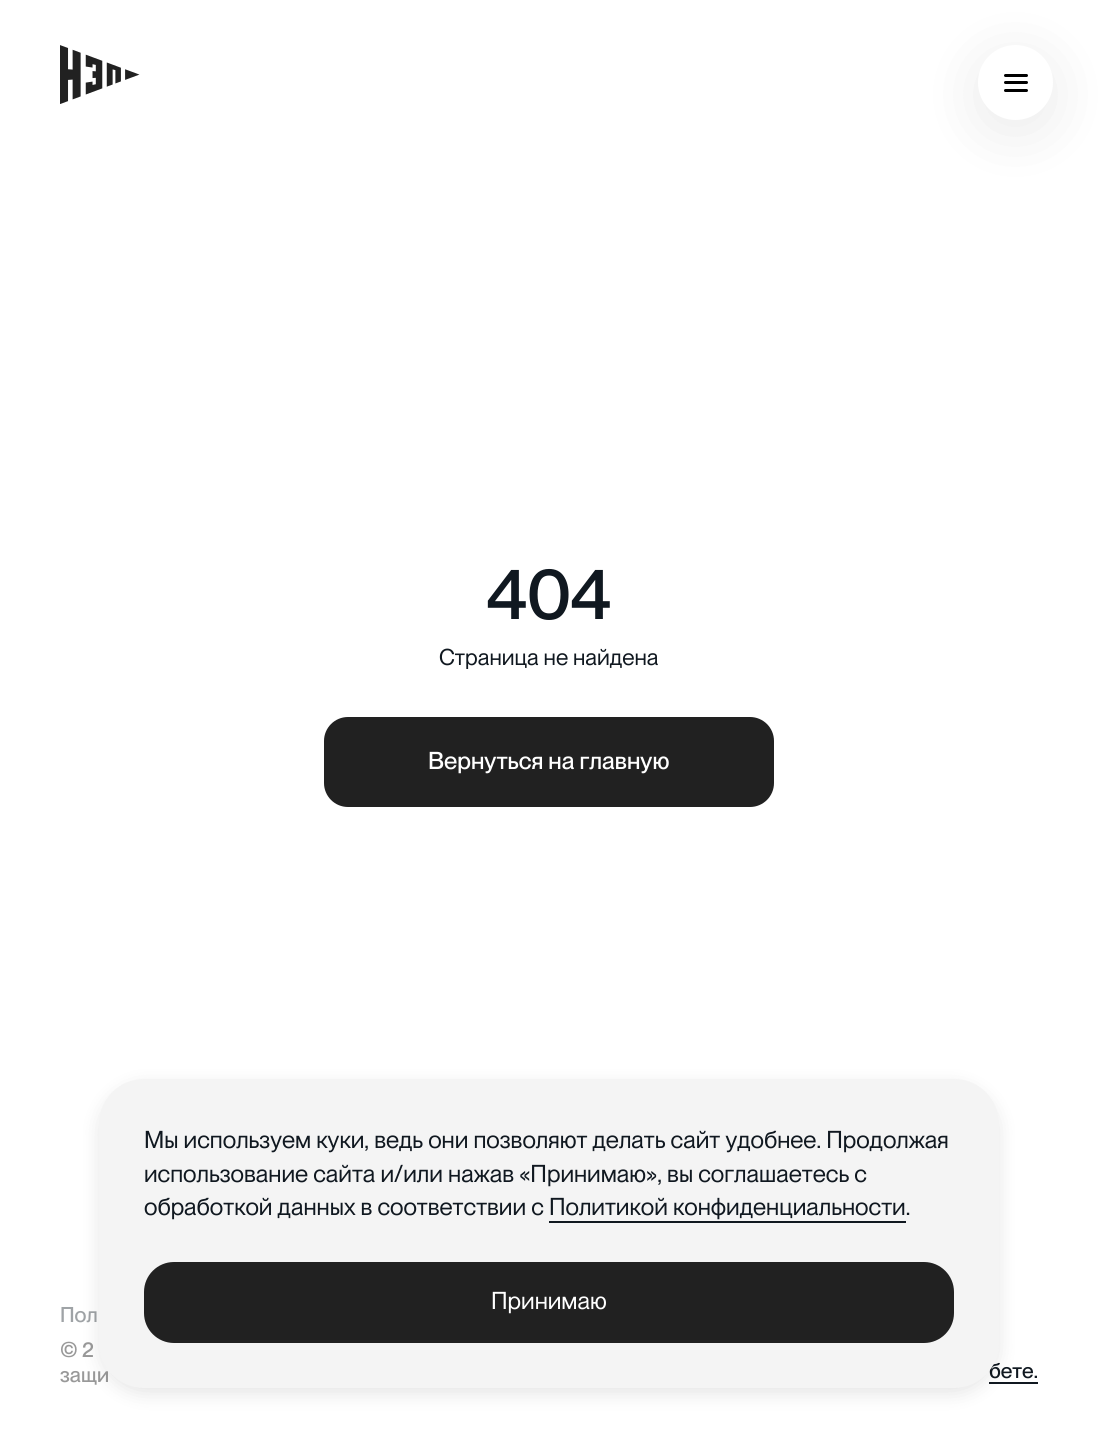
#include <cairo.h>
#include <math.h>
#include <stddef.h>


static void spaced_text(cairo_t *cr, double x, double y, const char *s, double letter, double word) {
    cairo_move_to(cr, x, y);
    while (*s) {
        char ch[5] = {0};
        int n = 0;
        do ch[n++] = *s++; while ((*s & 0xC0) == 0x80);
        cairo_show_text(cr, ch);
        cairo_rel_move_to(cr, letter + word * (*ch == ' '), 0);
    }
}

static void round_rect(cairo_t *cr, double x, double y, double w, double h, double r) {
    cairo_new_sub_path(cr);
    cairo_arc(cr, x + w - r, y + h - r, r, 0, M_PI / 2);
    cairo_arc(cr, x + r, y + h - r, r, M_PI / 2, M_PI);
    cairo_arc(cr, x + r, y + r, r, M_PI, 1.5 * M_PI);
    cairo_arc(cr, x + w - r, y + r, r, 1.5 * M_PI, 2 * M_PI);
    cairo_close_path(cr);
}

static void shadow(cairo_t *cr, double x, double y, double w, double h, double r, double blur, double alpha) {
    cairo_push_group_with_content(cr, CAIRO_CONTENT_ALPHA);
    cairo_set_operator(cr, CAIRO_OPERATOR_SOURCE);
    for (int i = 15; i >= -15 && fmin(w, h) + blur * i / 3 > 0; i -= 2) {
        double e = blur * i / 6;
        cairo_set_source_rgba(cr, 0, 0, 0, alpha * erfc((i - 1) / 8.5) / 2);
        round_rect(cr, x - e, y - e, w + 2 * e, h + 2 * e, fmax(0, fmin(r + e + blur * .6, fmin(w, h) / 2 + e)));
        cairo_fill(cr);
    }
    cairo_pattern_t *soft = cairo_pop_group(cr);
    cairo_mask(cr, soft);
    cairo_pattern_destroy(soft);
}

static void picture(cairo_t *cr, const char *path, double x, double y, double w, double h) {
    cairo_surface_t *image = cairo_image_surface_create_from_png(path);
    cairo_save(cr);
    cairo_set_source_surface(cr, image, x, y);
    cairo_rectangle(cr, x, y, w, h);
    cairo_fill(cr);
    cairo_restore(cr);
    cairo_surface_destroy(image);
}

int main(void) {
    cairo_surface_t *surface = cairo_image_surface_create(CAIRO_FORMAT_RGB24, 1098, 1432);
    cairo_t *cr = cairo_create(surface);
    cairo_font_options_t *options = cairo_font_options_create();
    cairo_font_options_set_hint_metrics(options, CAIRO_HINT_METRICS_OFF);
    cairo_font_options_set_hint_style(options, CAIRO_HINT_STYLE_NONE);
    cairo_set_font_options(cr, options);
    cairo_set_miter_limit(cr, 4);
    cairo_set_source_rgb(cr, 1, 1, 1);
    cairo_paint(cr);
    picture(cr, "img1.png", 60, 45, 80, 59);
    cairo_set_source_rgb(cr, 0, 0, 0);
    shadow(cr, 978, 57, 75, 75, 37.5, 30, 0.08);
    cairo_set_source_rgb(cr, 1, 1, 1);
    cairo_arc(cr, 1015.5, 82.5, 37.5, 0, 2 * M_PI);
    cairo_fill(cr);
    cairo_set_source_rgb(cr, 0, 0, 0);
    round_rect(cr, 1004, 74, 24, 3, 1.5);
    cairo_fill(cr);
    round_rect(cr, 1004, 81, 24, 3, 1.5);
    cairo_fill(cr);
    round_rect(cr, 1004, 89, 24, 3, 1.5);
    cairo_fill(cr);
    cairo_select_font_face(cr, "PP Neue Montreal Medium", CAIRO_FONT_SLANT_NORMAL, CAIRO_FONT_WEIGHT_NORMAL);
    cairo_set_font_size(cr, 71);
    cairo_set_source_rgb(cr, 0.063, 0.094, 0.125);
    spaced_text(cr, 486, 619, "404", -1.5, 0);
    cairo_select_font_face(cr, "PP Neue Montreal", CAIRO_FONT_SLANT_NORMAL, CAIRO_FONT_WEIGHT_NORMAL);
    cairo_set_font_size(cr, 22.5);
    cairo_move_to(cr, 439, 665);
    cairo_show_text(cr, "Страница не найдена");
    cairo_set_source_rgb(cr, 0.129, 0.129, 0.129);
    round_rect(cr, 324, 717, 450, 90, 24);
    cairo_fill(cr);
    cairo_select_font_face(cr, "PP Neue Montreal Medium", CAIRO_FONT_SLANT_NORMAL, CAIRO_FONT_WEIGHT_NORMAL);
    cairo_set_font_size(cr, 24);
    cairo_set_source_rgb(cr, 1, 1, 1);
    cairo_move_to(cr, 428, 769);
    cairo_show_text(cr, "Вернуться на главную");
    cairo_set_font_size(cr, 21);
    cairo_set_source_rgb(cr, 0.624, 0.639, 0.651);
    cairo_move_to(cr, 60, 1322);
    cairo_show_text(cr, "Пол");
    cairo_set_source_rgb(cr, 0.6, 0.6, 0.6);
    cairo_move_to(cr, 60, 1357);
    cairo_show_text(cr, "© 2");
    cairo_move_to(cr, 60, 1382);
    cairo_show_text(cr, "защи");
    cairo_set_source_rgb(cr, 0.063, 0.094, 0.125);
    cairo_move_to(cr, 989, 1378);
    cairo_show_text(cr, "бете.");
    cairo_rectangle(cr, 989, 1382, 49, 2);
    cairo_fill(cr);
    cairo_set_source_rgb(cr, 0, 0, 0);
    shadow(cr, 99, 1085, 900, 309, 45, 9, 0.1);
    cairo_set_source_rgb(cr, 0.957, 0.957, 0.957);
    round_rect(cr, 99, 1079, 900, 309, 45);
    cairo_fill(cr);
    cairo_select_font_face(cr, "PP Neue Montreal", CAIRO_FONT_SLANT_NORMAL, CAIRO_FONT_WEIGHT_NORMAL);
    cairo_set_font_size(cr, 24);
    cairo_set_source_rgb(cr, 0.063, 0.094, 0.125);
    cairo_move_to(cr, 144, 1148);
    cairo_show_text(cr, "Мы используем куки, ведь они позволяют делать сайт удобнее. Продолжая");
    cairo_move_to(cr, 144, 1182);
    cairo_show_text(cr, "использование сайта и/или нажав «Принимаю», вы соглашаетесь с");
    cairo_move_to(cr, 144, 1215);
    cairo_show_text(cr, "обработкой данных в соответствии с Политикой конфиденциальности.");
    cairo_rectangle(cr, 549, 1221, 357, 2);
    cairo_fill(cr);
    cairo_set_source_rgb(cr, 0.129, 0.129, 0.129);
    round_rect(cr, 144, 1262, 810, 81, 30);
    cairo_fill(cr);
    cairo_set_source_rgb(cr, 1, 1, 1);
    cairo_move_to(cr, 491, 1309);
    cairo_show_text(cr, "Принимаю");
    cairo_surface_write_to_png(surface, "page.png");
    cairo_font_options_destroy(options);
    cairo_destroy(cr);
    cairo_surface_destroy(surface);
    return 0;
}
